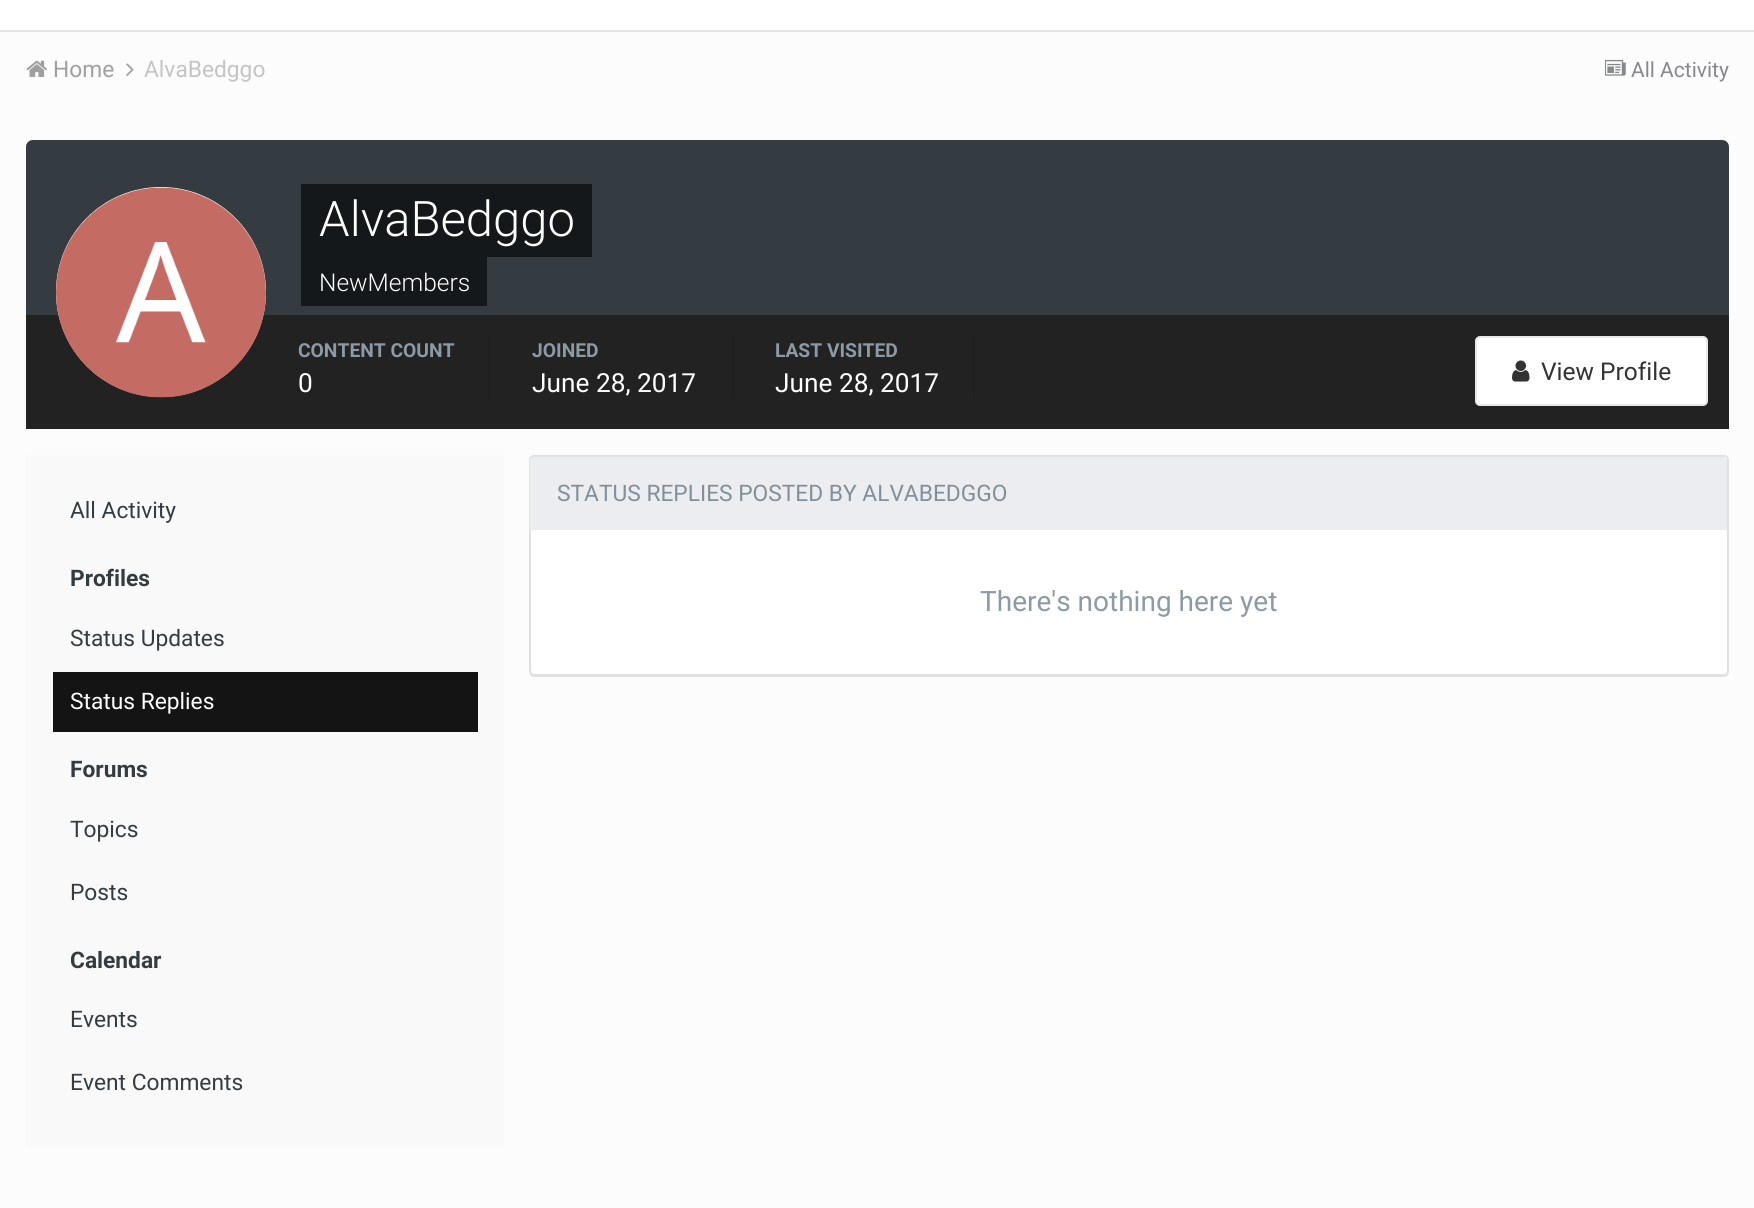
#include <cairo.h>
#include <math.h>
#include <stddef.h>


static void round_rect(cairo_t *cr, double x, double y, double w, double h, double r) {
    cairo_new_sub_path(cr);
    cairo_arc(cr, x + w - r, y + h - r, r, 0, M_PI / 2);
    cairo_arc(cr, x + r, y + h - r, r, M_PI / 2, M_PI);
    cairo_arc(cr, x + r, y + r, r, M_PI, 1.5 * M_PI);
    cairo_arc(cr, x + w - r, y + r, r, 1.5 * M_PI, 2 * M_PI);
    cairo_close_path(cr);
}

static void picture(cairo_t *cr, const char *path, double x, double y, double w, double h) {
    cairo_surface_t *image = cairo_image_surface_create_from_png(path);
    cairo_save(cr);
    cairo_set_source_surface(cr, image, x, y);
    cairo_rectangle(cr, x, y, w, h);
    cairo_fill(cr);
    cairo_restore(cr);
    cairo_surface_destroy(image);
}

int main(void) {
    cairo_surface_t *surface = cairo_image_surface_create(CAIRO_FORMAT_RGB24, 1754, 1208);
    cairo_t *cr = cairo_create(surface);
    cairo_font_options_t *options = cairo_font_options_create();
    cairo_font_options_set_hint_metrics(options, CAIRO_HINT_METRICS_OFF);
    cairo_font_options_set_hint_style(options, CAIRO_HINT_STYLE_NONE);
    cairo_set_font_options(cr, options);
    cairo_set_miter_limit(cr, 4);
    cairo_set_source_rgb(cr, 0.988, 0.988, 0.988);
    cairo_paint(cr);
    cairo_set_source_rgb(cr, 0.89, 0.89, 0.89);
    cairo_rectangle(cr, 0, 30, 1754, 2);
    cairo_fill(cr);
    cairo_set_source_rgb(cr, 1, 1, 1);
    cairo_rectangle(cr, 0, 0, 1754, 30);
    cairo_fill(cr);
    picture(cr, "img1.png", 26, 60, 21, 17);
    cairo_select_font_face(cr, "Roboto", CAIRO_FONT_SLANT_NORMAL, CAIRO_FONT_WEIGHT_NORMAL);
    cairo_set_font_size(cr, 22.75);
    cairo_set_source_rgb(cr, 0.624, 0.624, 0.624);
    cairo_move_to(cr, 53, 77);
    cairo_show_text(cr, "Home");
    picture(cr, "img2.png", 126, 63, 8, 13);
    cairo_set_source_rgb(cr, 0.769, 0.769, 0.769);
    cairo_move_to(cr, 144, 77);
    cairo_show_text(cr, "AlvaBedggo");
    picture(cr, "img3.png", 1605, 59, 21, 17);
    cairo_set_font_size(cr, 21);
    cairo_set_source_rgb(cr, 0.522, 0.537, 0.549);
    cairo_move_to(cr, 1631, 77);
    cairo_show_text(cr, "All Activity");
    cairo_set_source_rgb(cr, 0.208, 0.235, 0.255);
    cairo_new_path(cr);
    cairo_move_to(cr, 33, 140);
    cairo_line_to(cr, 1722, 140);
    cairo_curve_to(cr, 1726, 140, 1729, 143, 1729, 147);
    cairo_line_to(cr, 1729, 315);
    cairo_line_to(cr, 26, 315);
    cairo_line_to(cr, 26, 147);
    cairo_curve_to(cr, 26, 143, 29, 140, 33, 140);
    cairo_close_path(cr);
    cairo_fill(cr);
    cairo_set_source_rgb(cr, 0.133, 0.133, 0.133);
    cairo_rectangle(cr, 26, 315, 1703, 114);
    cairo_fill(cr);
    cairo_set_source_rgb(cr, 1, 1, 1);
    cairo_arc(cr, 161, 292, 105, 0, 2 * M_PI);
    cairo_fill(cr);
    picture(cr, "img4.png", 56, 187, 210, 211);
    cairo_set_source_rgb(cr, 0.082, 0.094, 0.102);
    cairo_rectangle(cr, 301, 184, 291, 73);
    cairo_fill(cr);
    cairo_select_font_face(cr, "Roboto Light", CAIRO_FONT_SLANT_NORMAL, CAIRO_FONT_WEIGHT_NORMAL);
    cairo_set_font_size(cr, 49);
    cairo_set_source_rgb(cr, 1, 1, 1);
    cairo_move_to(cr, 319, 236);
    cairo_show_text(cr, "AlvaBedggo");
    cairo_set_source_rgb(cr, 0.082, 0.094, 0.102);
    cairo_rectangle(cr, 301, 257, 186, 49);
    cairo_fill(cr);
    cairo_set_font_size(cr, 24.5);
    cairo_set_source_rgb(cr, 1, 1, 1);
    cairo_move_to(cr, 319, 291);
    cairo_show_text(cr, "NewMembers");
    cairo_set_source_rgb(cr, 0.122, 0.122, 0.122);
    cairo_rectangle(cr, 488, 336, 2, 63);
    cairo_fill(cr);
    cairo_select_font_face(cr, "Roboto", CAIRO_FONT_SLANT_NORMAL, CAIRO_FONT_WEIGHT_BOLD);
    cairo_set_font_size(cr, 19.25);
    cairo_set_source_rgb(cr, 0.553, 0.604, 0.651);
    cairo_move_to(cr, 298, 357);
    cairo_show_text(cr, "CONTENT COUNT");
    cairo_select_font_face(cr, "Roboto", CAIRO_FONT_SLANT_NORMAL, CAIRO_FONT_WEIGHT_NORMAL);
    cairo_set_font_size(cr, 26.25);
    cairo_set_source_rgb(cr, 1, 1, 1);
    cairo_move_to(cr, 298, 392);
    cairo_show_text(cr, "0");
    cairo_set_source_rgb(cr, 0.122, 0.122, 0.122);
    cairo_rectangle(cr, 732, 336, 2, 63);
    cairo_fill(cr);
    cairo_select_font_face(cr, "Roboto", CAIRO_FONT_SLANT_NORMAL, CAIRO_FONT_WEIGHT_BOLD);
    cairo_set_font_size(cr, 19.25);
    cairo_set_source_rgb(cr, 0.553, 0.604, 0.651);
    cairo_move_to(cr, 532, 357);
    cairo_show_text(cr, "JOINED");
    cairo_select_font_face(cr, "Roboto", CAIRO_FONT_SLANT_NORMAL, CAIRO_FONT_WEIGHT_NORMAL);
    cairo_set_font_size(cr, 26.25);
    cairo_set_source_rgb(cr, 1, 1, 1);
    cairo_move_to(cr, 532, 392);
    cairo_show_text(cr, "June 28, 2017");
    cairo_set_source_rgb(cr, 0.122, 0.122, 0.122);
    cairo_rectangle(cr, 973, 336, 2, 63);
    cairo_fill(cr);
    cairo_select_font_face(cr, "Roboto", CAIRO_FONT_SLANT_NORMAL, CAIRO_FONT_WEIGHT_BOLD);
    cairo_set_font_size(cr, 19.25);
    cairo_set_source_rgb(cr, 0.553, 0.604, 0.651);
    cairo_move_to(cr, 775, 357);
    cairo_show_text(cr, "LAST VISITED");
    cairo_select_font_face(cr, "Roboto", CAIRO_FONT_SLANT_NORMAL, CAIRO_FONT_WEIGHT_NORMAL);
    cairo_set_font_size(cr, 26.25);
    cairo_set_source_rgb(cr, 1, 1, 1);
    cairo_move_to(cr, 775, 392);
    cairo_show_text(cr, "June 28, 2017");
    round_rect(cr, 1476, 337, 231, 68, 4);
    cairo_fill_preserve(cr);
    cairo_set_source_rgb(cr, 0.91, 0.91, 0.91);
    cairo_stroke(cr);
    picture(cr, "img5.png", 1512, 360, 18, 22);
    cairo_set_font_size(cr, 24.5);
    cairo_set_source_rgb(cr, 0.2, 0.2, 0.2);
    cairo_move_to(cr, 1541, 380);
    cairo_show_text(cr, "View Profile");
    cairo_set_source_rgb(cr, 0.973, 0.973, 0.973);
    cairo_rectangle(cr, 26, 455, 478, 693);
    cairo_fill(cr);
    cairo_set_font_size(cr, 22.75);
    cairo_set_source_rgb(cr, 0.208, 0.235, 0.255);
    cairo_move_to(cr, 70, 518);
    cairo_show_text(cr, "All Activity");
    cairo_select_font_face(cr, "Roboto", CAIRO_FONT_SLANT_NORMAL, CAIRO_FONT_WEIGHT_BOLD);
    cairo_move_to(cr, 70, 586);
    cairo_show_text(cr, "Profiles");
    cairo_select_font_face(cr, "Roboto", CAIRO_FONT_SLANT_NORMAL, CAIRO_FONT_WEIGHT_NORMAL);
    cairo_move_to(cr, 70, 646);
    cairo_show_text(cr, "Status Updates");
    cairo_set_source_rgb(cr, 0.082, 0.082, 0.082);
    cairo_rectangle(cr, 53, 672, 425, 60);
    cairo_fill(cr);
    cairo_set_source_rgb(cr, 1, 1, 1);
    cairo_move_to(cr, 70, 709);
    cairo_show_text(cr, "Status Replies");
    cairo_select_font_face(cr, "Roboto", CAIRO_FONT_SLANT_NORMAL, CAIRO_FONT_WEIGHT_BOLD);
    cairo_set_source_rgb(cr, 0.208, 0.235, 0.255);
    cairo_move_to(cr, 70, 777);
    cairo_show_text(cr, "Forums");
    cairo_select_font_face(cr, "Roboto", CAIRO_FONT_SLANT_NORMAL, CAIRO_FONT_WEIGHT_NORMAL);
    cairo_move_to(cr, 70, 837);
    cairo_show_text(cr, "Topics");
    cairo_move_to(cr, 70, 900);
    cairo_show_text(cr, "Posts");
    cairo_select_font_face(cr, "Roboto", CAIRO_FONT_SLANT_NORMAL, CAIRO_FONT_WEIGHT_BOLD);
    cairo_move_to(cr, 70, 968);
    cairo_show_text(cr, "Calendar");
    cairo_select_font_face(cr, "Roboto", CAIRO_FONT_SLANT_NORMAL, CAIRO_FONT_WEIGHT_NORMAL);
    cairo_move_to(cr, 70, 1027);
    cairo_show_text(cr, "Events");
    cairo_move_to(cr, 70, 1090);
    cairo_show_text(cr, "Event Comments");
    cairo_set_source_rgb(cr, 1, 1, 1);
    cairo_rectangle(cr, 529, 455, 1200, 221);
    cairo_fill(cr);
    cairo_set_source_rgba(cr, 0, 0, 0, 0.1);
    cairo_new_path(cr);
    cairo_move_to(cr, 529, 673);
    cairo_curve_to(cr, 529, 675, 531, 677, 534, 677);
    cairo_line_to(cr, 1724, 677);
    cairo_curve_to(cr, 1727, 677, 1729, 675, 1729, 672);
    cairo_line_to(cr, 1729, 670);
    cairo_curve_to(cr, 1729, 673, 1727, 676, 1724, 676);
    cairo_line_to(cr, 534, 676);
    cairo_curve_to(cr, 532, 676, 530, 674, 529, 673);
    cairo_close_path(cr);
    cairo_fill(cr);
    cairo_set_source_rgb(cr, 1, 1, 1);
    round_rect(cr, 530, 456, 1198, 219, 4);
    cairo_fill_preserve(cr);
    cairo_set_source_rgb(cr, 0.878, 0.878, 0.878);
    cairo_stroke(cr);
    cairo_set_source_rgb(cr, 0.922, 0.929, 0.941);
    cairo_new_path(cr);
    cairo_move_to(cr, 534, 457);
    cairo_line_to(cr, 1723, 457);
    cairo_curve_to(cr, 1725, 457, 1727, 459, 1727, 461);
    cairo_line_to(cr, 1727, 530);
    cairo_line_to(cr, 530, 530);
    cairo_line_to(cr, 530, 461);
    cairo_curve_to(cr, 530, 459, 532, 457, 534, 457);
    cairo_close_path(cr);
    cairo_fill(cr);
    cairo_set_source_rgb(cr, 0.51, 0.557, 0.6);
    cairo_move_to(cr, 557, 501);
    cairo_show_text(cr, "STATUS REPLIES POSTED BY ALVABEDGGO");
    cairo_set_font_size(cr, 28);
    cairo_set_source_rgb(cr, 0.553, 0.604, 0.651);
    cairo_move_to(cr, 980, 611);
    cairo_show_text(cr, "There's nothing here yet");
    cairo_surface_write_to_png(surface, "page.png");
    cairo_font_options_destroy(options);
    cairo_destroy(cr);
    cairo_surface_destroy(surface);
    return 0;
}
